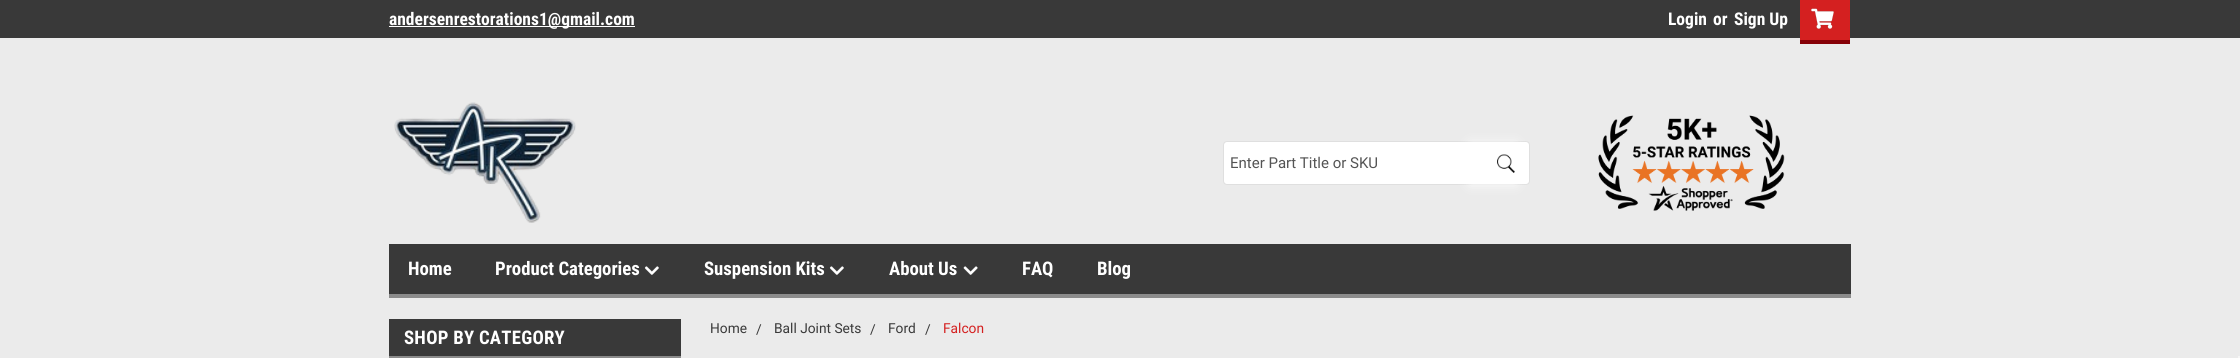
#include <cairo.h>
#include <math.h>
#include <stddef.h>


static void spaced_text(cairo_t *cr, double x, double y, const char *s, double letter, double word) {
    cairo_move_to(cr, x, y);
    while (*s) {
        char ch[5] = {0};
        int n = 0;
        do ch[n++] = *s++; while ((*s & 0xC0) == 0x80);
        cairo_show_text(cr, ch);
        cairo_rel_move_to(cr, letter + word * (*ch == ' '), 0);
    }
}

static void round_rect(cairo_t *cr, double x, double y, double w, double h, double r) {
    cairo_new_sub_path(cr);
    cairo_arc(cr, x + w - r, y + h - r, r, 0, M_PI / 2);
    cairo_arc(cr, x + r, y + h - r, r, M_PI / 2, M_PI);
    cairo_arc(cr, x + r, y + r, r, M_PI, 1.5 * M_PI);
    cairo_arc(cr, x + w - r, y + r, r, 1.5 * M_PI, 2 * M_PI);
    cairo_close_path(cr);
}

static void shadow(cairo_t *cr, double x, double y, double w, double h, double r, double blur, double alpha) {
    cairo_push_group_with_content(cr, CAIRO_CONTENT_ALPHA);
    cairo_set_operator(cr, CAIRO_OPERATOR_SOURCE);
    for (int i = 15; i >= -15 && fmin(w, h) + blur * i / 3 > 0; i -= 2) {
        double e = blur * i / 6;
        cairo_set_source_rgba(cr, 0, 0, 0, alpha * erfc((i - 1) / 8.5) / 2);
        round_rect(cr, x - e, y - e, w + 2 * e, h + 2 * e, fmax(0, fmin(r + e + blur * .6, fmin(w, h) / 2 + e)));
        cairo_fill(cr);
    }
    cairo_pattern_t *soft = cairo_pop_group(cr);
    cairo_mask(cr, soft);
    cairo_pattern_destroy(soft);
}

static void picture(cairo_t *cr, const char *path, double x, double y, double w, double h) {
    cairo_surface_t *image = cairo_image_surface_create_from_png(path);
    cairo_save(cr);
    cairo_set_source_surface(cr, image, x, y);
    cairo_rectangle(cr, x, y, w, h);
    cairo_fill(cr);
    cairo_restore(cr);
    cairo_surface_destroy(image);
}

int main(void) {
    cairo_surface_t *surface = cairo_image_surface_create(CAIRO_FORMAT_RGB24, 2240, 358);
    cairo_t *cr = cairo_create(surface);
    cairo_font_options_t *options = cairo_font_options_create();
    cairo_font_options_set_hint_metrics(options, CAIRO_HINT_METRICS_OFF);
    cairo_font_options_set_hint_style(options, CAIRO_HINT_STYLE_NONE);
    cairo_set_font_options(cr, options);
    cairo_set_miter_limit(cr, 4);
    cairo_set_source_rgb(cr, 0.918, 0.918, 0.918);
    cairo_paint(cr);
    cairo_set_source_rgb(cr, 0.224, 0.224, 0.224);
    cairo_rectangle(cr, 0, 0, 2240, 38);
    cairo_fill(cr);
    cairo_set_source_rgb(cr, 1, 1, 1);
    cairo_rectangle(cr, 389, 26, 246, 1);
    cairo_fill(cr);
    cairo_select_font_face(cr, "Roboto Condensed", CAIRO_FONT_SLANT_NORMAL, CAIRO_FONT_WEIGHT_BOLD);
    cairo_set_font_size(cr, 17.5);
    cairo_move_to(cr, 389, 25);
    cairo_show_text(cr, "andersenrestorations1@gmail.com");
    cairo_move_to(cr, 1668, 25);
    cairo_show_text(cr, "Login");
    cairo_move_to(cr, 1713, 25);
    cairo_show_text(cr, "or");
    cairo_move_to(cr, 1734, 25);
    cairo_show_text(cr, "Sign Up");
    cairo_set_source_rgb(cr, 0.831, 0.125, 0.125);
    cairo_rectangle(cr, 1800, 0, 50, 40);
    cairo_fill(cr);
    cairo_set_source_rgb(cr, 0.525, 0.004, 0.035);
    cairo_rectangle(cr, 1800, 40, 50, 4);
    cairo_fill(cr);
    picture(cr, "img1.png", 1811, 8, 23, 21);
    picture(cr, "img2.png", 394, 102, 182, 121);
    cairo_set_source_rgb(cr, 1, 1, 1);
    round_rect(cr, 1223.5, 141.5, 306, 43, 3.5);
    cairo_fill_preserve(cr);
    cairo_set_source_rgb(cr, 0.875, 0.875, 0.875);
    cairo_set_line_width(cr, 1);
    cairo_stroke(cr);
    cairo_select_font_face(cr, "Roboto", CAIRO_FONT_SLANT_NORMAL, CAIRO_FONT_WEIGHT_NORMAL);
    cairo_set_font_size(cr, 15);
    cairo_set_source_rgb(cr, 0.329, 0.329, 0.329);
    cairo_move_to(cr, 1230, 168);
    cairo_show_text(cr, "Enter Part Title or SKU");
    cairo_save(cr);
    cairo_set_fill_rule(cr, CAIRO_FILL_RULE_EVEN_ODD);
    cairo_new_path(cr);
    cairo_move_to(cr, 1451, 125);
    cairo_line_to(cr, 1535, 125);
    cairo_line_to(cr, 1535, 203);
    cairo_line_to(cr, 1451, 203);
    cairo_close_path(cr);
    cairo_move_to(cr, 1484, 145);
    cairo_line_to(cr, 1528, 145);
    cairo_line_to(cr, 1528, 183);
    cairo_line_to(cr, 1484, 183);
    cairo_close_path(cr);
    cairo_clip(cr);
    cairo_set_source_rgb(cr, 1, 1, 1);
    shadow(cr, 1470, 144, 46, 40, 0, 6, 1);
    cairo_restore(cr);
    picture(cr, "img3.png", 1497, 154, 18, 19);
    picture(cr, "img4.png", 1598, 115, 187, 96);
    cairo_set_source_rgb(cr, 0.224, 0.224, 0.224);
    cairo_rectangle(cr, 389, 244, 1462, 50);
    cairo_fill(cr);
    cairo_set_source_rgb(cr, 0.545, 0.545, 0.545);
    cairo_rectangle(cr, 389, 294, 1462, 4);
    cairo_fill(cr);
    cairo_select_font_face(cr, "Roboto Condensed", CAIRO_FONT_SLANT_NORMAL, CAIRO_FONT_WEIGHT_BOLD);
    cairo_set_font_size(cr, 18.75);
    cairo_set_source_rgb(cr, 1, 1, 1);
    cairo_move_to(cr, 408, 275);
    cairo_show_text(cr, "Home");
    cairo_move_to(cr, 495, 275);
    cairo_show_text(cr, "Product Categories");
    picture(cr, "img5.png", 644, 266, 15, 9);
    cairo_move_to(cr, 704, 275);
    cairo_show_text(cr, "Suspension Kits");
    picture(cr, "img5.png", 829, 266, 15, 9);
    cairo_move_to(cr, 889, 275);
    cairo_show_text(cr, "About Us");
    picture(cr, "img6.png", 963, 266, 15, 9);
    cairo_move_to(cr, 1022, 275);
    cairo_show_text(cr, "FAQ");
    cairo_move_to(cr, 1097, 275);
    cairo_show_text(cr, "Blog");
    cairo_select_font_face(cr, "Roboto", CAIRO_FONT_SLANT_NORMAL, CAIRO_FONT_WEIGHT_NORMAL);
    cairo_set_font_size(cr, 13.75);
    cairo_set_source_rgb(cr, 0.224, 0.224, 0.224);
    cairo_move_to(cr, 710, 333);
    cairo_show_text(cr, "Home");
    cairo_move_to(cr, 756, 334);
    cairo_show_text(cr, "/");
    cairo_move_to(cr, 774, 333);
    cairo_show_text(cr, "Ball Joint Sets");
    cairo_move_to(cr, 870, 334);
    cairo_show_text(cr, "/");
    cairo_move_to(cr, 888, 333);
    cairo_show_text(cr, "Ford");
    cairo_move_to(cr, 925, 334);
    cairo_show_text(cr, "/");
    cairo_set_source_rgb(cr, 0.831, 0.125, 0.125);
    cairo_move_to(cr, 943, 333);
    cairo_show_text(cr, "Falcon");
    cairo_set_source_rgb(cr, 0.224, 0.224, 0.224);
    cairo_rectangle(cr, 389, 319, 292, 37);
    cairo_fill(cr);
    cairo_set_source_rgb(cr, 0.545, 0.545, 0.545);
    cairo_rectangle(cr, 389, 356, 292, 2);
    cairo_fill(cr);
    cairo_select_font_face(cr, "Roboto Condensed", CAIRO_FONT_SLANT_NORMAL, CAIRO_FONT_WEIGHT_BOLD);
    cairo_set_font_size(cr, 18.75);
    cairo_set_source_rgb(cr, 1, 1, 1);
    spaced_text(cr, 404, 344, "SHOP BY CATEGORY", 0.25, 0);
    cairo_set_source_rgb(cr, 0.961, 0.961, 0.961);
    cairo_rectangle(cr, 2238, 356, 2, 2);
    cairo_fill(cr);
    cairo_surface_write_to_png(surface, "page.png");
    cairo_font_options_destroy(options);
    cairo_destroy(cr);
    cairo_surface_destroy(surface);
    return 0;
}
